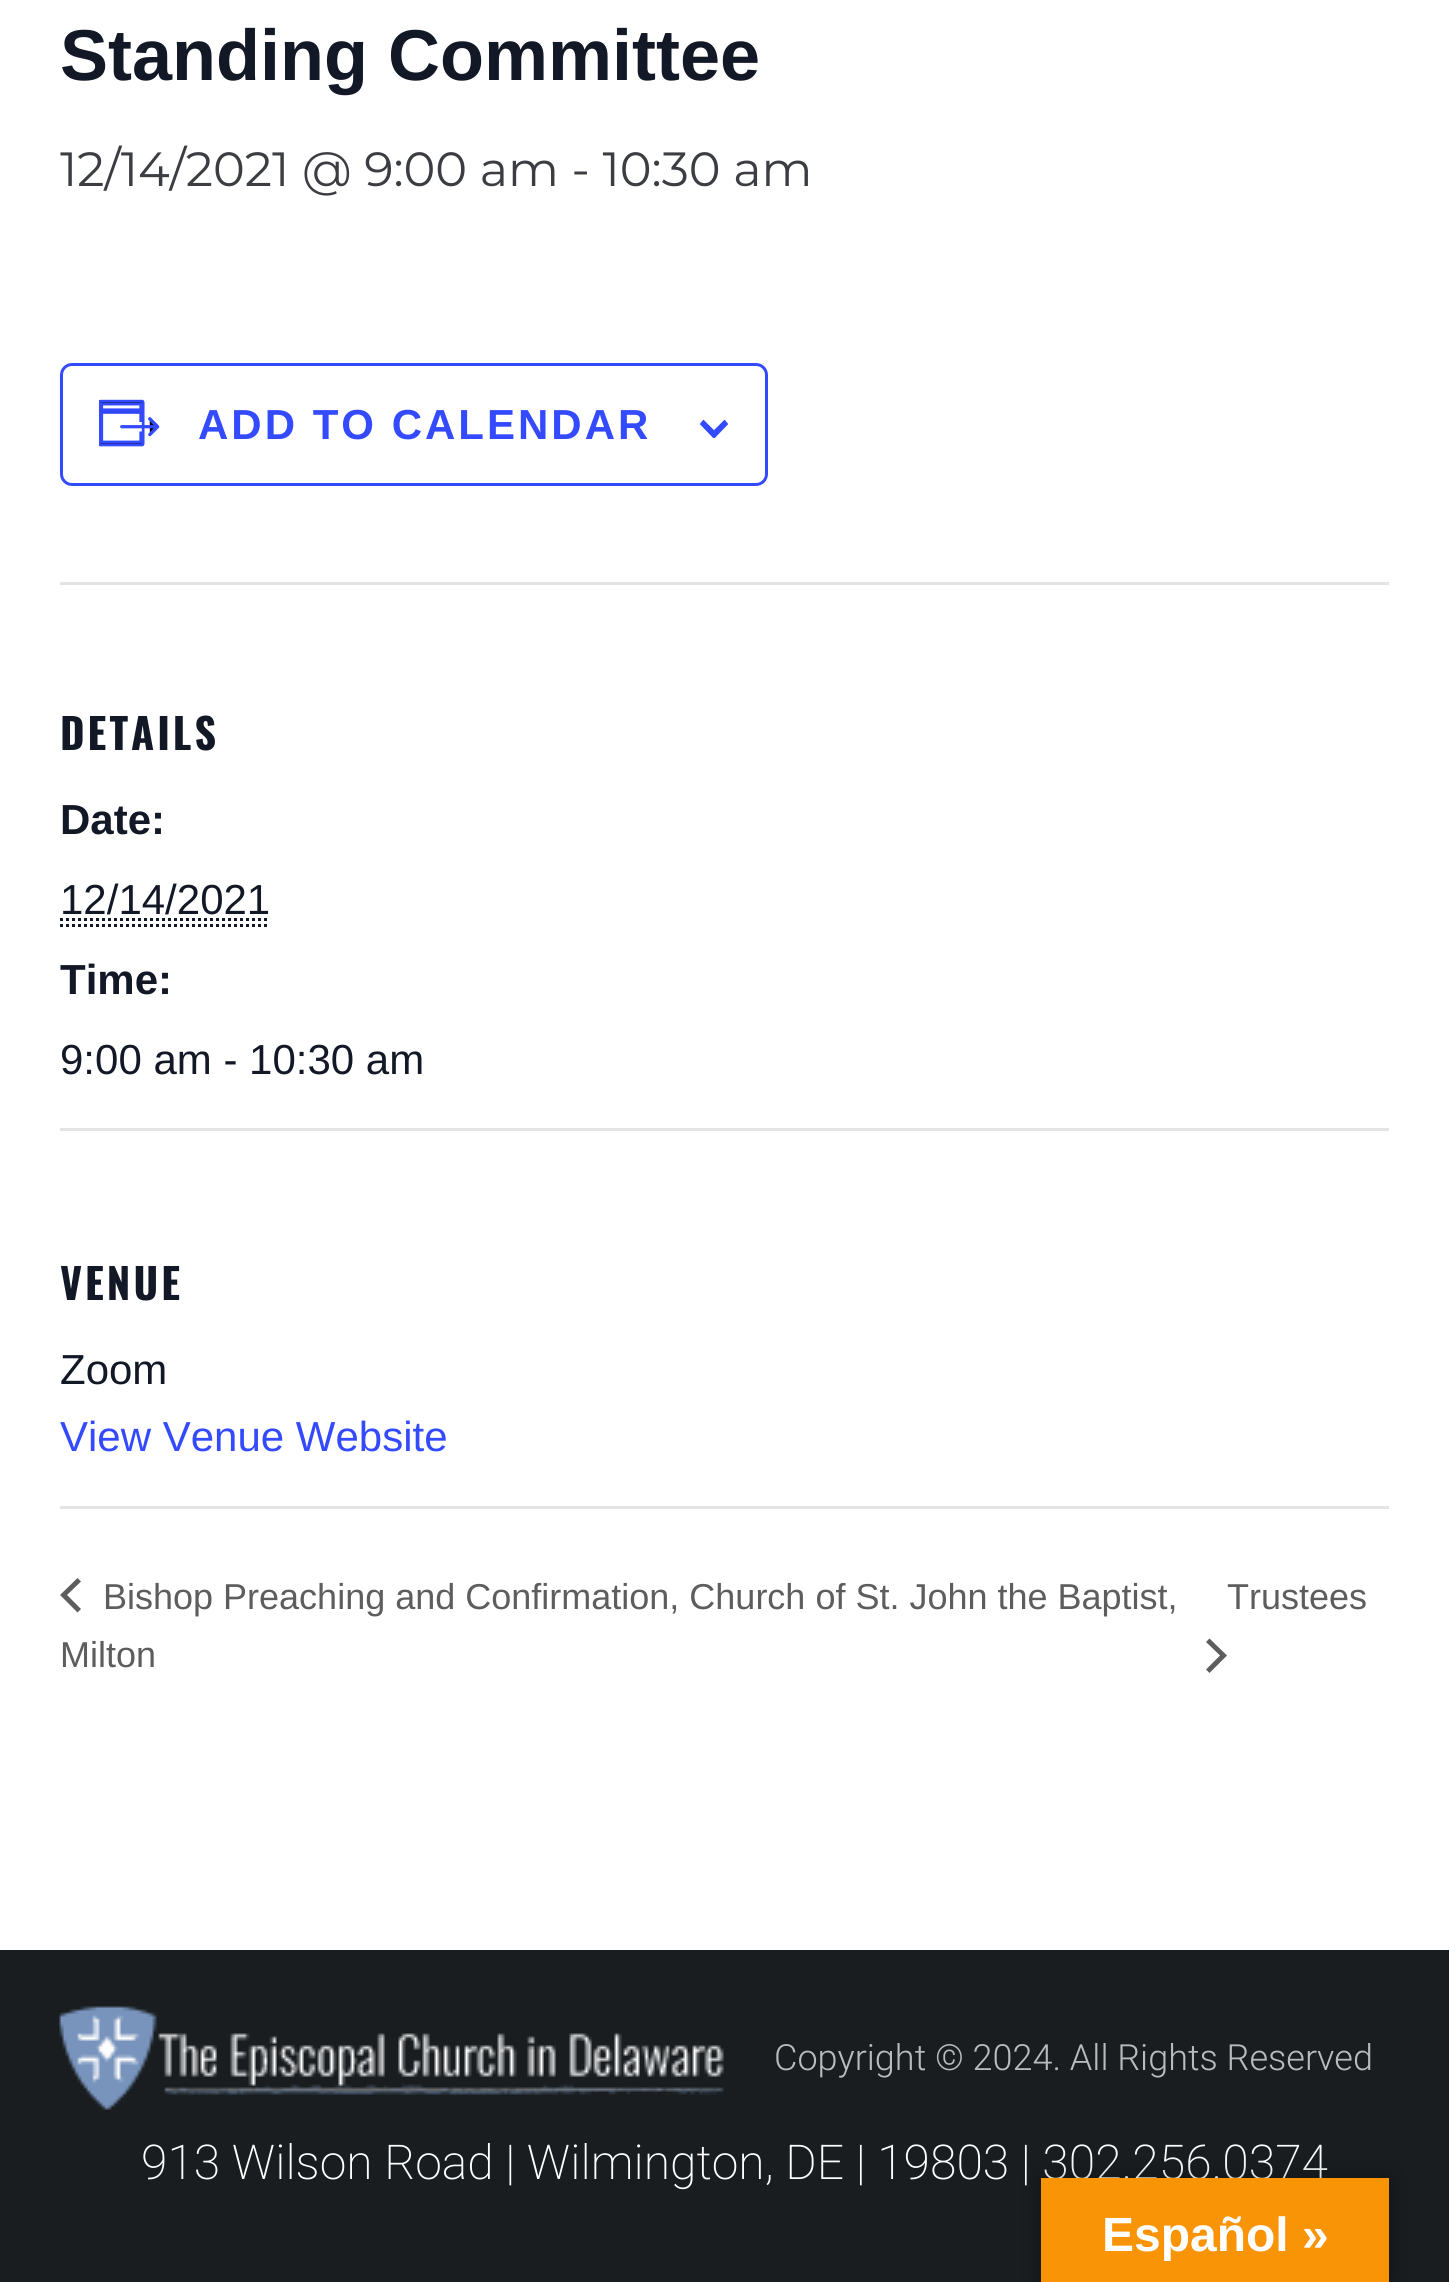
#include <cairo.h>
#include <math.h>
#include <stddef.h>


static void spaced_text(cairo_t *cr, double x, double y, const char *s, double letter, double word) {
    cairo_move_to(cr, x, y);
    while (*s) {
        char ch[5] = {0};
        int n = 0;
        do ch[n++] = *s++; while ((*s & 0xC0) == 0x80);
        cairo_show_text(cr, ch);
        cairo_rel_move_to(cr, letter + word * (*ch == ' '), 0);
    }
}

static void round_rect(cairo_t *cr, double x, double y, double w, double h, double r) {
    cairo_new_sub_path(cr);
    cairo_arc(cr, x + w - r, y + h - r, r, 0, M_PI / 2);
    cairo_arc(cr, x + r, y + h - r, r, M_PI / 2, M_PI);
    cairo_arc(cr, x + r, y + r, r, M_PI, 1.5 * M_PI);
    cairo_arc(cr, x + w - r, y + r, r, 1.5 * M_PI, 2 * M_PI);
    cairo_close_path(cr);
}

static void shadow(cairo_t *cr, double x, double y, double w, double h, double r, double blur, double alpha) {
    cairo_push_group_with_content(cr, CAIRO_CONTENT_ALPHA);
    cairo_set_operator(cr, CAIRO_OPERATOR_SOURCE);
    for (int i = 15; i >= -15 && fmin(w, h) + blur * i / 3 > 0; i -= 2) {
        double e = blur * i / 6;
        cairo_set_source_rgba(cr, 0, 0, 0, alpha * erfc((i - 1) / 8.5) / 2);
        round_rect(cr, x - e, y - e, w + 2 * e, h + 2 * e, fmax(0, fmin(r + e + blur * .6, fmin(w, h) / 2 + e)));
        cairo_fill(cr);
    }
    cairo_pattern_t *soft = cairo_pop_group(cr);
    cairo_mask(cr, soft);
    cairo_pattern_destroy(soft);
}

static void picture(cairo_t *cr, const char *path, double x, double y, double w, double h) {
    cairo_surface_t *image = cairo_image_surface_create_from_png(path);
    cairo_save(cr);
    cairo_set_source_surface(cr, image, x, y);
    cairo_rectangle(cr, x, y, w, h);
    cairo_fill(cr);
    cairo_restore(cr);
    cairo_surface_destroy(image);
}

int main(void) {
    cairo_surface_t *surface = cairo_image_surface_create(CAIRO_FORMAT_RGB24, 1449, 2282);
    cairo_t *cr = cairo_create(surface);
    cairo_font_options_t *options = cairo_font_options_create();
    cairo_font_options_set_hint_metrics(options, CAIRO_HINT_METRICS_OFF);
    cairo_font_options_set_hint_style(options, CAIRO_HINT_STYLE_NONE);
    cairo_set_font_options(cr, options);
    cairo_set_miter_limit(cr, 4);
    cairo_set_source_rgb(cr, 1, 1, 1);
    cairo_paint(cr);
    cairo_select_font_face(cr, "Liberation Sans", CAIRO_FONT_SLANT_NORMAL, CAIRO_FONT_WEIGHT_BOLD);
    cairo_set_font_size(cr, 72);
    cairo_set_source_rgb(cr, 0.078, 0.094, 0.153);
    cairo_move_to(cr, 60, 80);
    cairo_show_text(cr, "Standing Committee");
    cairo_select_font_face(cr, "Montserrat", CAIRO_FONT_SLANT_NORMAL, CAIRO_FONT_WEIGHT_NORMAL);
    cairo_set_font_size(cr, 48);
    cairo_set_source_rgb(cr, 0.231, 0.239, 0.259);
    cairo_move_to(cr, 60, 186);
    cairo_show_text(cr, "12/14/2021 @ 9:00 am - 10:30 am");
    round_rect(cr, 61.5, 364.5, 705, 120, 10.5);
    cairo_set_source_rgb(cr, 0.2, 0.29, 1);
    cairo_set_line_width(cr, 3);
    cairo_stroke(cr);
    picture(cr, "img1.png", 99, 399, 61, 48);
    cairo_select_font_face(cr, "Liberation Sans", CAIRO_FONT_SLANT_NORMAL, CAIRO_FONT_WEIGHT_BOLD);
    cairo_set_font_size(cr, 42);
    spaced_text(cr, 198, 439, "ADD TO CALENDAR", 3, 0);
    cairo_set_fill_rule(cr, CAIRO_FILL_RULE_EVEN_ODD);
    cairo_new_path(cr);
    cairo_move_to(cr, 703.5, 421.5);
    cairo_line_to(cr, 714, 432);
    cairo_line_to(cr, 724.5, 421.5);
    cairo_line_to(cr, 726.5, 424);
    cairo_line_to(cr, 714, 437);
    cairo_line_to(cr, 701.5, 424);
    cairo_close_path(cr);
    cairo_fill(cr);
    cairo_save(cr);
    cairo_set_fill_rule(cr, CAIRO_FILL_RULE_WINDING);
    cairo_rectangle(cr, 699, 420, 30, 18);
    cairo_clip(cr);
    cairo_new_path(cr);
    cairo_move_to(cr, 703.5, 421.5);
    cairo_line_to(cr, 714, 432);
    cairo_line_to(cr, 724.5, 421.5);
    cairo_line_to(cr, 726.5, 424);
    cairo_line_to(cr, 714, 437);
    cairo_line_to(cr, 701.5, 424);
    cairo_close_path(cr);
    cairo_set_line_width(cr, 2.6);
    cairo_stroke(cr);
    cairo_restore(cr);
    cairo_set_source_rgb(cr, 0.894, 0.894, 0.894);
    cairo_rectangle(cr, 60, 582, 1329, 3);
    cairo_fill(cr);
    cairo_select_font_face(cr, "Oswald", CAIRO_FONT_SLANT_NORMAL, CAIRO_FONT_WEIGHT_BOLD);
    cairo_set_source_rgb(cr, 0.078, 0.094, 0.153);
    spaced_text(cr, 60, 750, "DETAILS", 3, 0);
    cairo_select_font_face(cr, "Liberation Sans", CAIRO_FONT_SLANT_NORMAL, CAIRO_FONT_WEIGHT_BOLD);
    cairo_move_to(cr, 60, 834);
    cairo_show_text(cr, "Date:");
    cairo_select_font_face(cr, "Liberation Sans", CAIRO_FONT_SLANT_NORMAL, CAIRO_FONT_WEIGHT_NORMAL);
    cairo_move_to(cr, 60, 914);
    cairo_show_text(cr, "12/14/2021");
    cairo_new_path(cr);
    cairo_move_to(cr, 60, 925.5);
    cairo_line_to(cr, 270, 925.5);
    cairo_set_dash(cr, (double[]){3, 3}, 2, 0);
    cairo_stroke(cr);
    cairo_new_path(cr);
    cairo_move_to(cr, 60, 919.5);
    cairo_line_to(cr, 270, 919.5);
    cairo_stroke(cr);
    cairo_select_font_face(cr, "Liberation Sans", CAIRO_FONT_SLANT_NORMAL, CAIRO_FONT_WEIGHT_BOLD);
    cairo_move_to(cr, 60, 994);
    cairo_show_text(cr, "Time:");
    cairo_select_font_face(cr, "Liberation Sans", CAIRO_FONT_SLANT_NORMAL, CAIRO_FONT_WEIGHT_NORMAL);
    cairo_move_to(cr, 60, 1074);
    cairo_show_text(cr, "9:00 am - 10:30 am");
    cairo_set_source_rgb(cr, 0.894, 0.894, 0.894);
    cairo_rectangle(cr, 60, 1128, 1329, 3);
    cairo_fill(cr);
    cairo_select_font_face(cr, "Oswald", CAIRO_FONT_SLANT_NORMAL, CAIRO_FONT_WEIGHT_BOLD);
    cairo_set_source_rgb(cr, 0.078, 0.094, 0.153);
    spaced_text(cr, 60, 1300, "VENUE", 3, 0);
    cairo_select_font_face(cr, "Liberation Sans", CAIRO_FONT_SLANT_NORMAL, CAIRO_FONT_WEIGHT_NORMAL);
    cairo_move_to(cr, 60, 1384);
    cairo_show_text(cr, "Zoom");
    cairo_set_source_rgb(cr, 0.2, 0.29, 1);
    cairo_move_to(cr, 60, 1451);
    cairo_show_text(cr, "View Venue Website");
    cairo_set_source_rgb(cr, 0.894, 0.894, 0.894);
    cairo_rectangle(cr, 60, 1506, 1329, 3);
    cairo_fill(cr);
    cairo_set_source_rgb(cr, 0.365, 0.365, 0.365);
    cairo_set_fill_rule(cr, CAIRO_FILL_RULE_WINDING);
    cairo_new_path(cr);
    cairo_move_to(cr, 81, 1609);
    cairo_line_to(cr, 77.5, 1612.5);
    cairo_line_to(cr, 60, 1595);
    cairo_line_to(cr, 77.5, 1578);
    cairo_line_to(cr, 81, 1581.5);
    cairo_line_to(cr, 67, 1595);
    cairo_close_path(cr);
    cairo_fill(cr);
    cairo_set_font_size(cr, 36);
    cairo_move_to(cr, 103, 1609);
    cairo_show_text(cr, "Bishop Preaching and Confirmation, Church of St. John the Baptist,");
    cairo_move_to(cr, 60, 1667);
    cairo_show_text(cr, "Milton");
    cairo_move_to(cr, 1227, 1609);
    cairo_show_text(cr, "Trustees");
    cairo_new_path(cr);
    cairo_move_to(cr, 1206, 1642);
    cairo_line_to(cr, 1209.5, 1638.5);
    cairo_line_to(cr, 1227, 1655.5);
    cairo_line_to(cr, 1209.5, 1673);
    cairo_line_to(cr, 1206, 1669.5);
    cairo_line_to(cr, 1220, 1655.5);
    cairo_close_path(cr);
    cairo_fill(cr);
    cairo_set_source_rgb(cr, 0.098, 0.114, 0.125);
    cairo_rectangle(cr, 0, 1950, 1449, 332);
    cairo_fill(cr);
    picture(cr, "img2.png", 59, 2006, 665, 104);
    cairo_select_font_face(cr, "Roboto Light", CAIRO_FONT_SLANT_NORMAL, CAIRO_FONT_WEIGHT_NORMAL);
    cairo_set_source_rgb(cr, 0.729, 0.733, 0.737);
    cairo_move_to(cr, 774, 2070);
    cairo_show_text(cr, "Copyright © 2024. All Rights Reserved");
    cairo_select_font_face(cr, "Roboto ExtraLight", CAIRO_FONT_SLANT_NORMAL, CAIRO_FONT_WEIGHT_NORMAL);
    cairo_set_font_size(cr, 48);
    cairo_set_source_rgb(cr, 1, 1, 1);
    cairo_move_to(cr, 141, 2179);
    cairo_show_text(cr, "913 Wilson Road | Wilmington, DE | 19803 | 302.256.0374");
    cairo_set_source_rgb(cr, 0, 0, 0);
    shadow(cr, 1041, 2178, 348, 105, 0, 13.5, 0.3);
    cairo_set_source_rgb(cr, 0.973, 0.58, 0.024);
    cairo_rectangle(cr, 1041, 2178, 348, 104);
    cairo_fill(cr);
    cairo_select_font_face(cr, "Liberation Sans", CAIRO_FONT_SLANT_NORMAL, CAIRO_FONT_WEIGHT_BOLD);
    cairo_set_source_rgb(cr, 1, 1, 1);
    cairo_move_to(cr, 1102, 2251);
    cairo_show_text(cr, "Español »");
    cairo_surface_write_to_png(surface, "page.png");
    cairo_font_options_destroy(options);
    cairo_destroy(cr);
    cairo_surface_destroy(surface);
    return 0;
}
